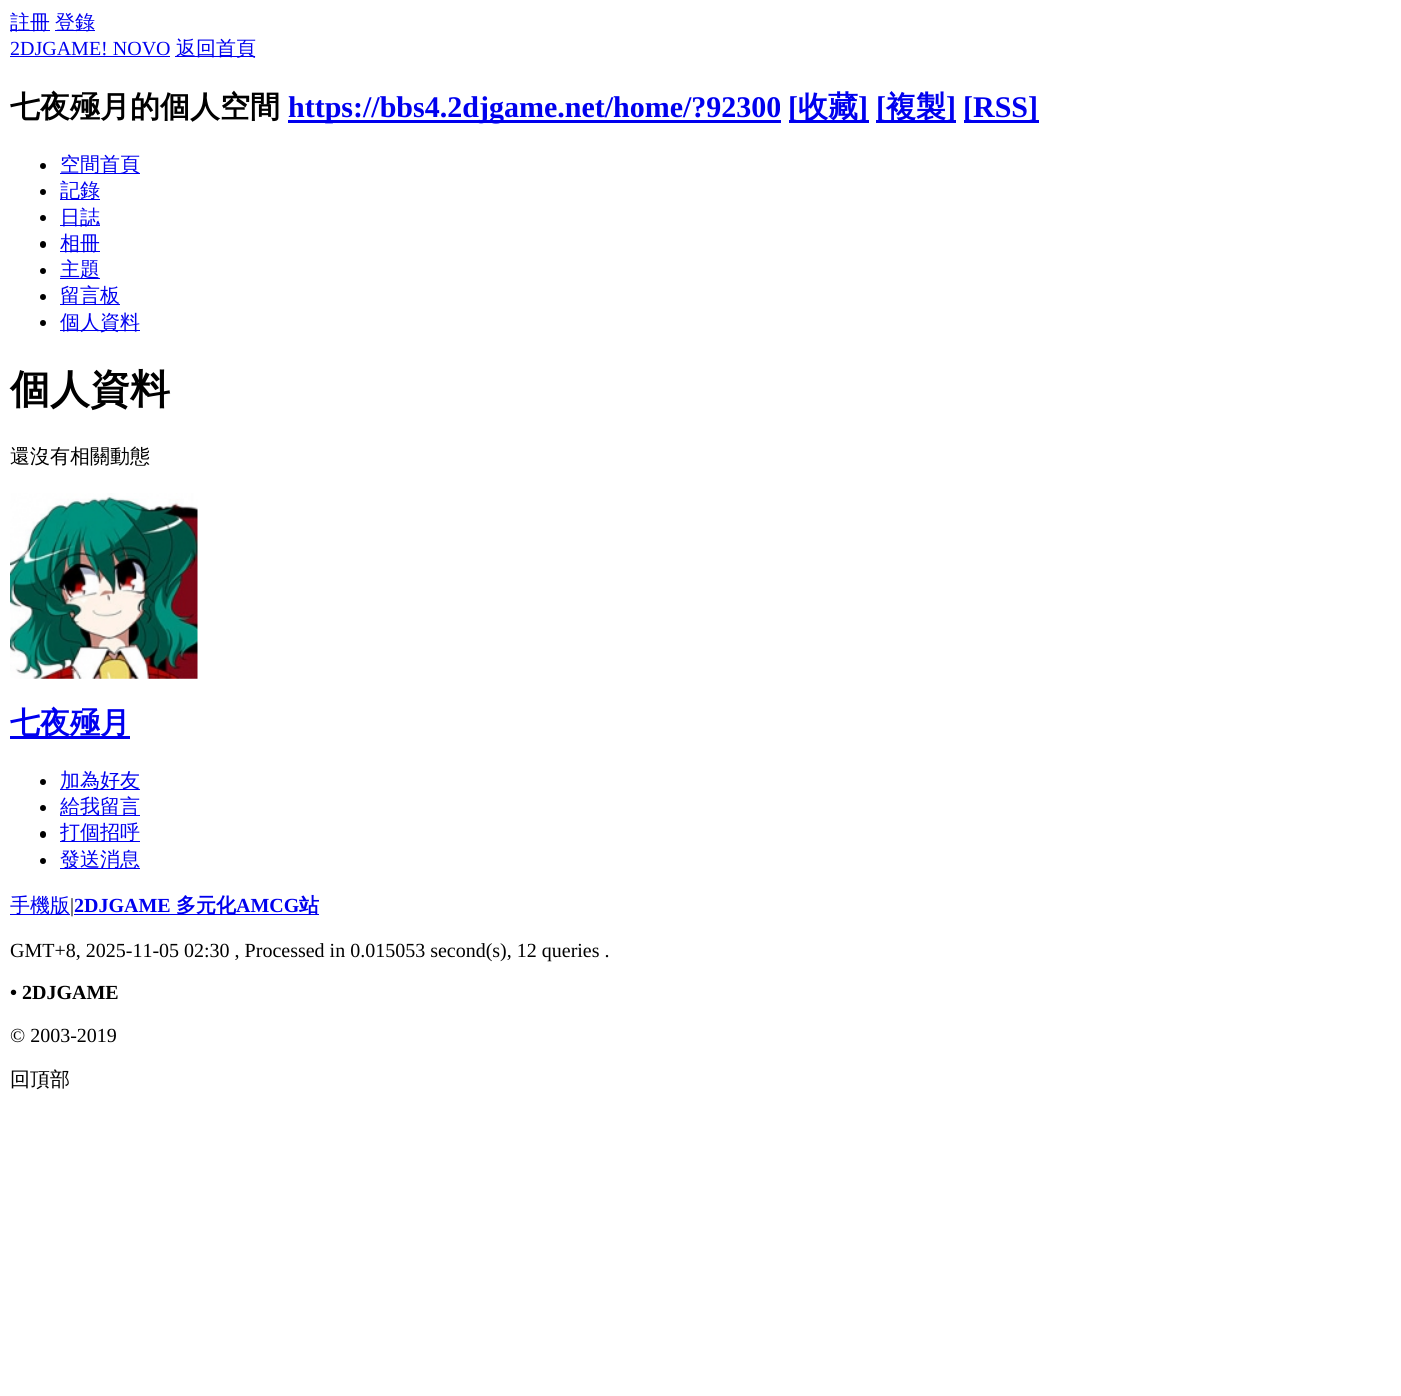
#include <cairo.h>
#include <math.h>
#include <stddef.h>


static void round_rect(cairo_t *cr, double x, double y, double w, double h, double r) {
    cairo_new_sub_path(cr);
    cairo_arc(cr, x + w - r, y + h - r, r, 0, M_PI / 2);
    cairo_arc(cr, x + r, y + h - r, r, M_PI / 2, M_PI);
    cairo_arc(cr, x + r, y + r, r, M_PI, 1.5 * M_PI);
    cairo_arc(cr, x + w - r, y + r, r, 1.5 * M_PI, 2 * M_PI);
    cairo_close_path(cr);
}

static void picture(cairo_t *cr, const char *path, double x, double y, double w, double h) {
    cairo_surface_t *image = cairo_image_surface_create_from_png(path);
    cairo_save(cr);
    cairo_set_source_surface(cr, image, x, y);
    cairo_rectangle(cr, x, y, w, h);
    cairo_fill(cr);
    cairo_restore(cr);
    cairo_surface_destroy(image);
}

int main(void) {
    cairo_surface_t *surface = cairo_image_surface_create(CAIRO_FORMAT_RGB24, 1401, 1396);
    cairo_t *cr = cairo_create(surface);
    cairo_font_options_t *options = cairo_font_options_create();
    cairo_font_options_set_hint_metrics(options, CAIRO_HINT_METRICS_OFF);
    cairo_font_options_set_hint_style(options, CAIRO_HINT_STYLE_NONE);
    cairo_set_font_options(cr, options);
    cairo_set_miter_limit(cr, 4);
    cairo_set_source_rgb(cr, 1, 1, 1);
    cairo_paint(cr);
    cairo_set_source_rgb(cr, 0, 0, 0.933);
    cairo_rectangle(cr, 10, 30, 40, 1);
    cairo_fill(cr);
    cairo_select_font_face(cr, "WenQuanYi Zen Hei Medium", CAIRO_FONT_SLANT_NORMAL, CAIRO_FONT_WEIGHT_NORMAL);
    cairo_set_font_size(cr, 20);
    cairo_move_to(cr, 10, 29);
    cairo_show_text(cr, "註冊");
    cairo_rectangle(cr, 55, 30, 40, 1);
    cairo_fill(cr);
    cairo_move_to(cr, 55, 29);
    cairo_show_text(cr, "登錄");
    cairo_select_font_face(cr, "Liberation Serif", CAIRO_FONT_SLANT_NORMAL, CAIRO_FONT_WEIGHT_NORMAL);
    cairo_move_to(cr, 10, 55);
    cairo_show_text(cr, "2DJGAME! NOVO");
    cairo_rectangle(cr, 10, 56, 160, 1);
    cairo_fill(cr);
    cairo_rectangle(cr, 175, 56, 80, 1);
    cairo_fill(cr);
    cairo_select_font_face(cr, "WenQuanYi Zen Hei Medium", CAIRO_FONT_SLANT_NORMAL, CAIRO_FONT_WEIGHT_NORMAL);
    cairo_move_to(cr, 176, 55);
    cairo_show_text(cr, "返回首頁");
    cairo_select_font_face(cr, "WenQuanYi Zen Hei", CAIRO_FONT_SLANT_NORMAL, CAIRO_FONT_WEIGHT_BOLD);
    cairo_set_font_size(cr, 30);
    cairo_set_source_rgb(cr, 0, 0, 0);
    cairo_move_to(cr, 10, 117);
    cairo_show_text(cr, "七夜殛月的個人空間");
    cairo_set_source_rgb(cr, 0, 0, 0.933);
    cairo_rectangle(cr, 288, 120, 493, 3);
    cairo_fill(cr);
    cairo_select_font_face(cr, "Liberation Serif", CAIRO_FONT_SLANT_NORMAL, CAIRO_FONT_WEIGHT_BOLD);
    cairo_move_to(cr, 288, 117);
    cairo_show_text(cr, "https://bbs4.2djgame.net/home/?92300");
    cairo_rectangle(cr, 789, 120, 80, 3);
    cairo_fill(cr);
    cairo_move_to(cr, 788, 117);
    cairo_show_text(cr, "[");
    cairo_select_font_face(cr, "WenQuanYi Zen Hei", CAIRO_FONT_SLANT_NORMAL, CAIRO_FONT_WEIGHT_BOLD);
    cairo_move_to(cr, 798, 117);
    cairo_show_text(cr, "收藏");
    cairo_select_font_face(cr, "Liberation Serif", CAIRO_FONT_SLANT_NORMAL, CAIRO_FONT_WEIGHT_BOLD);
    cairo_move_to(cr, 858, 117);
    cairo_show_text(cr, "]");
    cairo_rectangle(cr, 876, 120, 80, 3);
    cairo_fill(cr);
    cairo_move_to(cr, 876, 117);
    cairo_show_text(cr, "[");
    cairo_select_font_face(cr, "WenQuanYi Zen Hei", CAIRO_FONT_SLANT_NORMAL, CAIRO_FONT_WEIGHT_BOLD);
    cairo_move_to(cr, 886, 117);
    cairo_show_text(cr, "複製");
    cairo_select_font_face(cr, "Liberation Serif", CAIRO_FONT_SLANT_NORMAL, CAIRO_FONT_WEIGHT_BOLD);
    cairo_move_to(cr, 946, 117);
    cairo_show_text(cr, "]");
    cairo_rectangle(cr, 964, 120, 75, 3);
    cairo_fill(cr);
    cairo_move_to(cr, 963, 117);
    cairo_show_text(cr, "[RSS]");
    cairo_set_source_rgb(cr, 0, 0, 0);
    cairo_new_path(cr);
    cairo_arc(cr, 43, 166, 3, 0, 2 * M_PI);
    cairo_fill(cr);
    cairo_set_source_rgb(cr, 0, 0, 0.933);
    cairo_rectangle(cr, 60, 173, 80, 1);
    cairo_fill(cr);
    cairo_select_font_face(cr, "WenQuanYi Zen Hei Medium", CAIRO_FONT_SLANT_NORMAL, CAIRO_FONT_WEIGHT_NORMAL);
    cairo_set_font_size(cr, 20);
    cairo_move_to(cr, 60, 171);
    cairo_show_text(cr, "空間首頁");
    cairo_set_source_rgb(cr, 0, 0, 0);
    cairo_new_path(cr);
    cairo_arc(cr, 43, 192, 3, 0, 2 * M_PI);
    cairo_fill(cr);
    cairo_set_source_rgb(cr, 0, 0, 0.933);
    cairo_rectangle(cr, 60, 199, 40, 1);
    cairo_fill(cr);
    cairo_move_to(cr, 60, 197);
    cairo_show_text(cr, "記錄");
    cairo_set_source_rgb(cr, 0, 0, 0);
    cairo_new_path(cr);
    cairo_arc(cr, 43, 218, 3, 0, 2 * M_PI);
    cairo_fill(cr);
    cairo_set_source_rgb(cr, 0, 0, 0.933);
    cairo_rectangle(cr, 60, 225, 40, 1);
    cairo_fill(cr);
    cairo_move_to(cr, 60, 224);
    cairo_show_text(cr, "日誌");
    cairo_set_source_rgb(cr, 0, 0, 0);
    round_rect(cr, 40, 241, 6, 7, 3);
    cairo_fill(cr);
    cairo_set_source_rgb(cr, 0, 0, 0.933);
    cairo_rectangle(cr, 60, 251, 40, 1);
    cairo_fill(cr);
    cairo_move_to(cr, 60, 250);
    cairo_show_text(cr, "相冊");
    cairo_set_source_rgb(cr, 0, 0, 0);
    cairo_new_path(cr);
    cairo_arc(cr, 43, 271, 3, 0, 2 * M_PI);
    cairo_fill(cr);
    cairo_set_source_rgb(cr, 0, 0, 0.933);
    cairo_rectangle(cr, 60, 278, 40, 1);
    cairo_fill(cr);
    cairo_move_to(cr, 60, 276);
    cairo_show_text(cr, "主題");
    cairo_set_source_rgb(cr, 0, 0, 0);
    cairo_new_path(cr);
    cairo_arc(cr, 43, 297, 3, 0, 2 * M_PI);
    cairo_fill(cr);
    cairo_set_source_rgb(cr, 0, 0, 0.933);
    cairo_rectangle(cr, 60, 304, 60, 1);
    cairo_fill(cr);
    cairo_move_to(cr, 60, 302);
    cairo_show_text(cr, "留言板");
    cairo_set_source_rgb(cr, 0, 0, 0);
    cairo_new_path(cr);
    cairo_arc(cr, 43, 323, 3, 0, 2 * M_PI);
    cairo_fill(cr);
    cairo_set_source_rgb(cr, 0, 0, 0.933);
    cairo_rectangle(cr, 60, 330, 80, 1);
    cairo_fill(cr);
    cairo_move_to(cr, 60, 329);
    cairo_show_text(cr, "個人資料");
    cairo_select_font_face(cr, "WenQuanYi Zen Hei", CAIRO_FONT_SLANT_NORMAL, CAIRO_FONT_WEIGHT_BOLD);
    cairo_set_font_size(cr, 40);
    cairo_set_source_rgb(cr, 0, 0, 0);
    cairo_move_to(cr, 10, 403);
    cairo_show_text(cr, "個人資料");
    cairo_select_font_face(cr, "WenQuanYi Zen Hei Medium", CAIRO_FONT_SLANT_NORMAL, CAIRO_FONT_WEIGHT_NORMAL);
    cairo_set_font_size(cr, 20);
    cairo_move_to(cr, 10, 463);
    cairo_show_text(cr, "還沒有相關動態");
    picture(cr, "img1.png", 10, 493, 188, 186);
    cairo_set_source_rgb(cr, 0, 0, 0.933);
    cairo_rectangle(cr, 10, 736, 120, 3);
    cairo_fill(cr);
    cairo_select_font_face(cr, "WenQuanYi Zen Hei", CAIRO_FONT_SLANT_NORMAL, CAIRO_FONT_WEIGHT_BOLD);
    cairo_set_font_size(cr, 30);
    cairo_move_to(cr, 10, 733);
    cairo_show_text(cr, "七夜殛月");
    cairo_set_source_rgb(cr, 0, 0, 0);
    cairo_new_path(cr);
    cairo_arc(cr, 43, 782, 3, 0, 2 * M_PI);
    cairo_fill(cr);
    cairo_set_source_rgb(cr, 0, 0, 0.933);
    cairo_rectangle(cr, 60, 789, 80, 1);
    cairo_fill(cr);
    cairo_select_font_face(cr, "WenQuanYi Zen Hei Medium", CAIRO_FONT_SLANT_NORMAL, CAIRO_FONT_WEIGHT_NORMAL);
    cairo_set_font_size(cr, 20);
    cairo_move_to(cr, 60, 787);
    cairo_show_text(cr, "加為好友");
    cairo_set_source_rgb(cr, 0, 0, 0);
    cairo_new_path(cr);
    cairo_arc(cr, 43, 808, 3, 0, 2 * M_PI);
    cairo_fill(cr);
    cairo_set_source_rgb(cr, 0, 0, 0.933);
    cairo_rectangle(cr, 60, 815, 80, 1);
    cairo_fill(cr);
    cairo_move_to(cr, 60, 813);
    cairo_show_text(cr, "給我留言");
    cairo_set_source_rgb(cr, 0, 0, 0);
    round_rect(cr, 40, 831, 6, 7, 3);
    cairo_fill(cr);
    cairo_set_source_rgb(cr, 0, 0, 0.933);
    cairo_rectangle(cr, 60, 841, 80, 1);
    cairo_fill(cr);
    cairo_move_to(cr, 60, 839);
    cairo_show_text(cr, "打個招呼");
    cairo_set_source_rgb(cr, 0, 0, 0);
    cairo_new_path(cr);
    cairo_arc(cr, 43, 861, 3, 0, 2 * M_PI);
    cairo_fill(cr);
    cairo_set_source_rgb(cr, 0, 0, 0.933);
    cairo_rectangle(cr, 60, 868, 80, 1);
    cairo_fill(cr);
    cairo_move_to(cr, 60, 866);
    cairo_show_text(cr, "發送消息");
    cairo_rectangle(cr, 10, 914, 60, 1);
    cairo_fill(cr);
    cairo_move_to(cr, 10, 912);
    cairo_show_text(cr, "手機版");
    cairo_select_font_face(cr, "Liberation Serif", CAIRO_FONT_SLANT_NORMAL, CAIRO_FONT_WEIGHT_NORMAL);
    cairo_set_source_rgb(cr, 0, 0, 0);
    cairo_move_to(cr, 70, 912);
    cairo_show_text(cr, "|");
    cairo_select_font_face(cr, "Liberation Serif", CAIRO_FONT_SLANT_NORMAL, CAIRO_FONT_WEIGHT_BOLD);
    cairo_set_source_rgb(cr, 0, 0, 0.933);
    cairo_move_to(cr, 74, 912);
    cairo_show_text(cr, "2DJGAME");
    cairo_rectangle(cr, 74, 914, 245, 1);
    cairo_fill(cr);
    cairo_select_font_face(cr, "WenQuanYi Zen Hei", CAIRO_FONT_SLANT_NORMAL, CAIRO_FONT_WEIGHT_BOLD);
    cairo_move_to(cr, 176, 912);
    cairo_show_text(cr, "多元化");
    cairo_select_font_face(cr, "Liberation Serif", CAIRO_FONT_SLANT_NORMAL, CAIRO_FONT_WEIGHT_BOLD);
    cairo_move_to(cr, 236, 912);
    cairo_show_text(cr, "AMCG");
    cairo_select_font_face(cr, "WenQuanYi Zen Hei", CAIRO_FONT_SLANT_NORMAL, CAIRO_FONT_WEIGHT_BOLD);
    cairo_move_to(cr, 299, 912);
    cairo_show_text(cr, "站");
    cairo_select_font_face(cr, "Liberation Serif", CAIRO_FONT_SLANT_NORMAL, CAIRO_FONT_WEIGHT_NORMAL);
    cairo_set_source_rgb(cr, 0, 0, 0);
    cairo_move_to(cr, 10, 957);
    cairo_show_text(cr, "GMT+8, 2025-11-05 02:30 , Processed in 0.015053 second(s), 12 queries .");
    cairo_select_font_face(cr, "Liberation Serif", CAIRO_FONT_SLANT_NORMAL, CAIRO_FONT_WEIGHT_BOLD);
    cairo_move_to(cr, 10, 999);
    cairo_show_text(cr, "• 2DJGAME");
    cairo_select_font_face(cr, "Liberation Serif", CAIRO_FONT_SLANT_NORMAL, CAIRO_FONT_WEIGHT_NORMAL);
    cairo_move_to(cr, 10, 1042);
    cairo_show_text(cr, "© 2003-2019");
    cairo_select_font_face(cr, "WenQuanYi Zen Hei Medium", CAIRO_FONT_SLANT_NORMAL, CAIRO_FONT_WEIGHT_NORMAL);
    cairo_move_to(cr, 10, 1086);
    cairo_show_text(cr, "回頂部");
    cairo_surface_write_to_png(surface, "page.png");
    cairo_font_options_destroy(options);
    cairo_destroy(cr);
    cairo_surface_destroy(surface);
    return 0;
}
